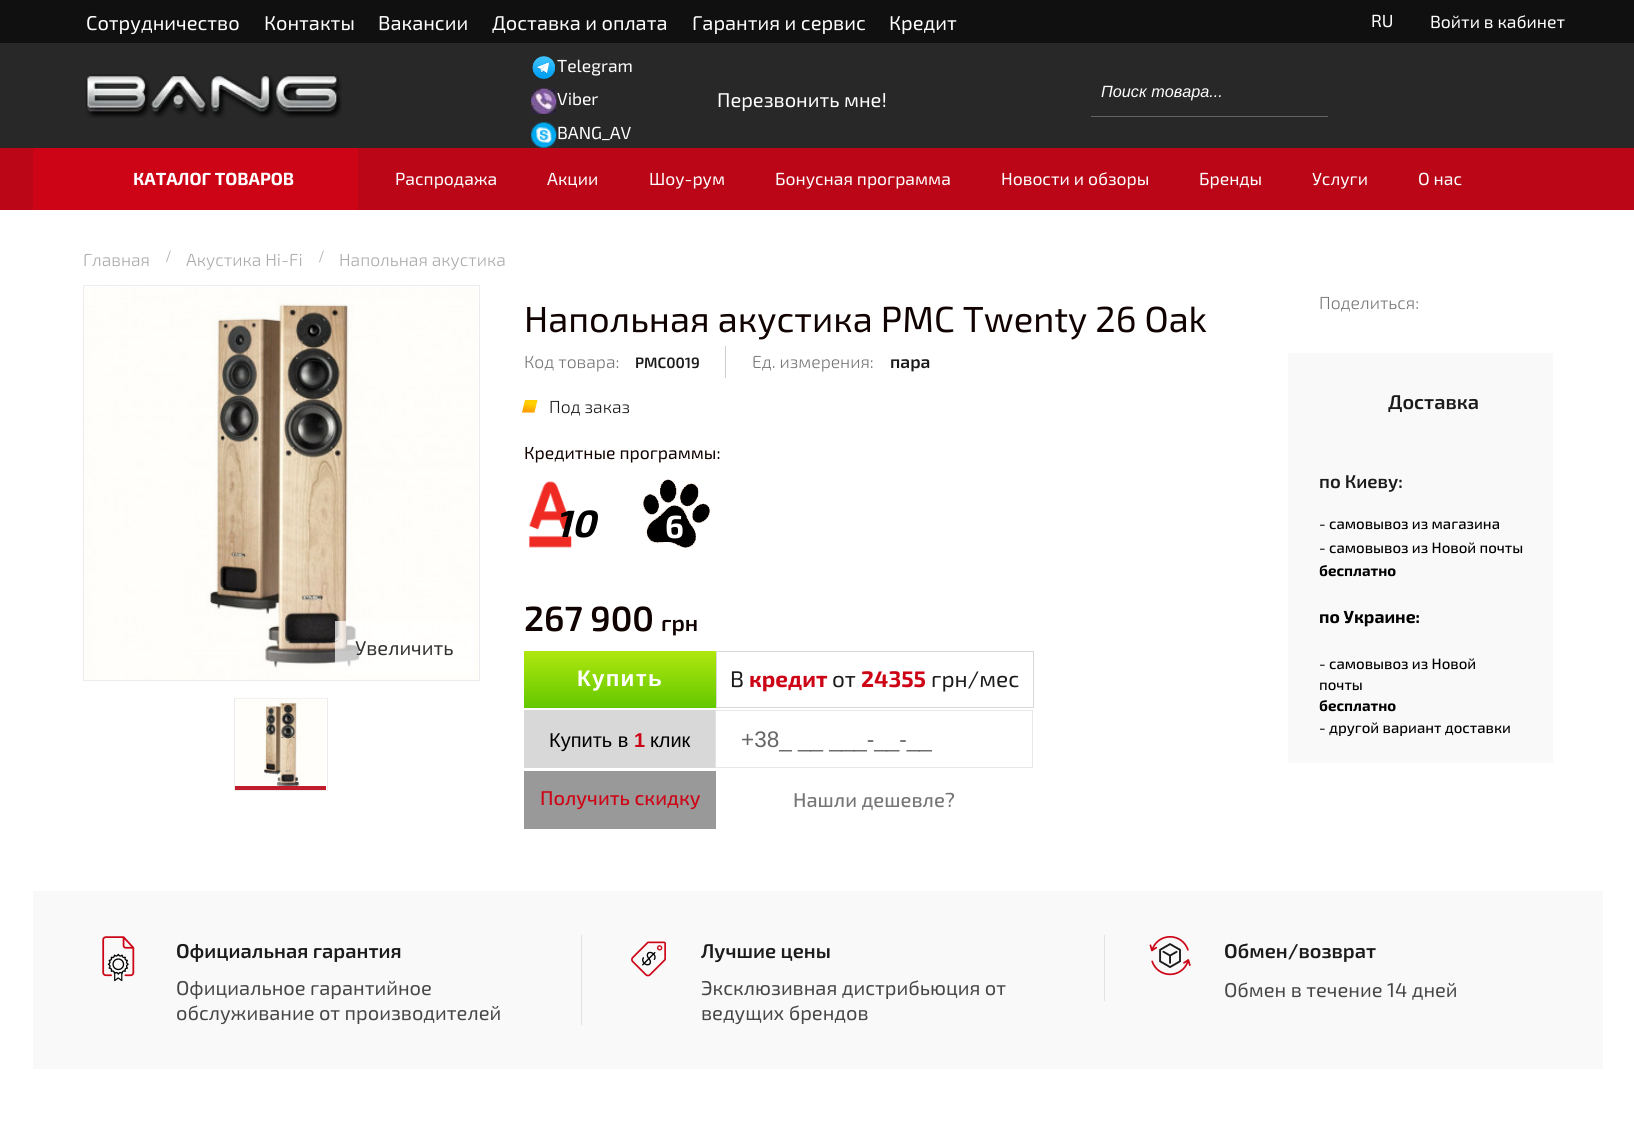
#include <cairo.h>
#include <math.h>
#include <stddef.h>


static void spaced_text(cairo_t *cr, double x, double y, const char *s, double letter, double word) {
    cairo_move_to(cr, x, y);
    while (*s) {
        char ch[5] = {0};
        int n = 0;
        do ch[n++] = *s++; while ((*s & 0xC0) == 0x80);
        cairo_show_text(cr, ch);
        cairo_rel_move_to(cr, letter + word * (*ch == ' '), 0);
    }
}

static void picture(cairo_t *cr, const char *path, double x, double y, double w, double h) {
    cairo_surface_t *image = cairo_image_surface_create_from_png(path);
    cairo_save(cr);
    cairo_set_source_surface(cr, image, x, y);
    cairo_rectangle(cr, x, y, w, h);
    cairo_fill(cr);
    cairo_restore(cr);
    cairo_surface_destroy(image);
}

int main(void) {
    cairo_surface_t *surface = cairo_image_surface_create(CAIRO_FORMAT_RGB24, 1634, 1130);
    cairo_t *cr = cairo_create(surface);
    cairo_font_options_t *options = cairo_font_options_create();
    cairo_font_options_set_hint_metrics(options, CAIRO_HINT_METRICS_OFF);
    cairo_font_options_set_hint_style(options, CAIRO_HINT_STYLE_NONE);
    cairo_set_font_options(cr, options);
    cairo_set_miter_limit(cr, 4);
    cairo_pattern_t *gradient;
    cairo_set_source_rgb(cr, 1, 1, 1);
    cairo_paint(cr);
    cairo_set_source_rgb(cr, 0.063, 0.063, 0.063);
    cairo_rectangle(cr, 0, 0, 1634, 43);
    cairo_fill(cr);
    cairo_select_font_face(cr, "Exo 2", CAIRO_FONT_SLANT_NORMAL, CAIRO_FONT_WEIGHT_NORMAL);
    cairo_set_font_size(cr, 20);
    cairo_set_source_rgb(cr, 1, 1, 1);
    cairo_move_to(cr, 86, 30);
    cairo_show_text(cr, "Сотрудничество");
    cairo_move_to(cr, 264, 30);
    cairo_show_text(cr, "Контакты");
    cairo_move_to(cr, 378, 30);
    cairo_show_text(cr, "Вакансии");
    cairo_move_to(cr, 492, 30);
    cairo_show_text(cr, "Доставка и оплата");
    cairo_move_to(cr, 692, 30);
    cairo_show_text(cr, "Гарантия и сервис");
    cairo_move_to(cr, 889, 30);
    cairo_show_text(cr, "Кредит");
    cairo_set_font_size(cr, 17.5);
    cairo_move_to(cr, 1371, 27);
    cairo_show_text(cr, "RU");
    cairo_move_to(cr, 1430, 28);
    cairo_show_text(cr, "Войти в кабинет");
    cairo_set_source_rgb(cr, 0.157, 0.157, 0.157);
    cairo_rectangle(cr, 0, 43, 1634, 105);
    cairo_fill(cr);
    picture(cr, "img1.png", 85, 74, 257, 44);
    picture(cr, "img2.png", 532, 56, 23, 23);
    cairo_set_source_rgb(cr, 1, 1, 1);
    cairo_move_to(cr, 557, 72);
    cairo_show_text(cr, "Telegram");
    picture(cr, "img3.png", 531, 88, 26, 26);
    cairo_move_to(cr, 557, 105);
    cairo_show_text(cr, "Viber");
    picture(cr, "img4.png", 531, 122, 26, 26);
    cairo_move_to(cr, 557, 139);
    cairo_show_text(cr, "BANG_AV");
    cairo_set_font_size(cr, 20);
    cairo_move_to(cr, 717, 107);
    cairo_show_text(cr, "Перезвонить мне!");
    cairo_set_source_rgb(cr, 0.392, 0.392, 0.392);
    cairo_rectangle(cr, 1091, 116, 237, 1);
    cairo_fill(cr);
    cairo_select_font_face(cr, "Liberation Sans", CAIRO_FONT_SLANT_ITALIC, CAIRO_FONT_WEIGHT_NORMAL);
    cairo_set_font_size(cr, 16.25);
    cairo_set_source_rgb(cr, 1, 1, 1);
    cairo_move_to(cr, 1101, 97);
    cairo_show_text(cr, "Поиск товара...");
    cairo_set_source_rgb(cr, 0.729, 0.024, 0.09);
    cairo_rectangle(cr, 0, 148, 1634, 62);
    cairo_fill(cr);
    cairo_set_source_rgb(cr, 0.804, 0.016, 0.086);
    cairo_rectangle(cr, 33, 148, 325, 62);
    cairo_fill(cr);
    cairo_select_font_face(cr, "Exo 2", CAIRO_FONT_SLANT_NORMAL, CAIRO_FONT_WEIGHT_BOLD);
    cairo_set_font_size(cr, 17.5);
    cairo_set_source_rgb(cr, 1, 1, 1);
    cairo_move_to(cr, 133, 185);
    cairo_show_text(cr, "КАТАЛОГ ТОВАРОВ");
    cairo_select_font_face(cr, "Exo 2", CAIRO_FONT_SLANT_NORMAL, CAIRO_FONT_WEIGHT_NORMAL);
    cairo_move_to(cr, 395, 185);
    cairo_show_text(cr, "Распродажа");
    cairo_move_to(cr, 547, 185);
    cairo_show_text(cr, "Акции");
    cairo_move_to(cr, 649, 185);
    cairo_show_text(cr, "Шоу-рум");
    cairo_move_to(cr, 775, 185);
    cairo_show_text(cr, "Бонусная программа");
    cairo_move_to(cr, 1001, 185);
    cairo_show_text(cr, "Новости и обзоры");
    cairo_move_to(cr, 1199, 185);
    cairo_show_text(cr, "Бренды");
    cairo_move_to(cr, 1312, 185);
    cairo_show_text(cr, "Услуги");
    cairo_move_to(cr, 1418, 185);
    cairo_show_text(cr, "О нас");
    cairo_select_font_face(cr, "Exo 2 Light", CAIRO_FONT_SLANT_NORMAL, CAIRO_FONT_WEIGHT_NORMAL);
    cairo_set_source_rgb(cr, 0.667, 0.667, 0.667);
    cairo_move_to(cr, 83, 266);
    cairo_show_text(cr, "Главная");
    cairo_select_font_face(cr, "Liberation Serif", CAIRO_FONT_SLANT_NORMAL, CAIRO_FONT_WEIGHT_NORMAL);
    cairo_move_to(cr, 166, 262);
    cairo_show_text(cr, "/");
    cairo_select_font_face(cr, "Exo 2 Light", CAIRO_FONT_SLANT_NORMAL, CAIRO_FONT_WEIGHT_NORMAL);
    cairo_move_to(cr, 186, 266);
    cairo_show_text(cr, "Акустика Hi-Fi");
    cairo_select_font_face(cr, "Liberation Serif", CAIRO_FONT_SLANT_NORMAL, CAIRO_FONT_WEIGHT_NORMAL);
    cairo_move_to(cr, 319, 262);
    cairo_show_text(cr, "/");
    cairo_select_font_face(cr, "Exo 2 Light", CAIRO_FONT_SLANT_NORMAL, CAIRO_FONT_WEIGHT_NORMAL);
    cairo_move_to(cr, 339, 266);
    cairo_show_text(cr, "Напольная акустика");
    cairo_select_font_face(cr, "Exo 2", CAIRO_FONT_SLANT_NORMAL, CAIRO_FONT_WEIGHT_NORMAL);
    cairo_set_font_size(cr, 36.25);
    cairo_set_source_rgb(cr, 0.063, 0.008, 0);
    cairo_move_to(cr, 524, 332);
    cairo_show_text(cr, "Напольная акустика PMC Twenty 26 Oak");
    cairo_select_font_face(cr, "Exo 2 Light", CAIRO_FONT_SLANT_NORMAL, CAIRO_FONT_WEIGHT_NORMAL);
    cairo_set_font_size(cr, 17.5);
    cairo_set_source_rgb(cr, 0.463, 0.463, 0.463);
    cairo_move_to(cr, 524, 368);
    cairo_show_text(cr, "Код товара:");
    cairo_select_font_face(cr, "Exo 2 SemiBold", CAIRO_FONT_SLANT_NORMAL, CAIRO_FONT_WEIGHT_NORMAL);
    cairo_set_font_size(cr, 15);
    cairo_set_source_rgb(cr, 0.106, 0.106, 0.106);
    cairo_move_to(cr, 635, 368);
    cairo_show_text(cr, "PMC0019");
    cairo_set_source_rgb(cr, 0.812, 0.812, 0.812);
    cairo_rectangle(cr, 725, 346, 1, 32);
    cairo_fill(cr);
    cairo_select_font_face(cr, "Exo 2 Light", CAIRO_FONT_SLANT_NORMAL, CAIRO_FONT_WEIGHT_NORMAL);
    cairo_set_font_size(cr, 17.5);
    cairo_set_source_rgb(cr, 0.463, 0.463, 0.463);
    cairo_move_to(cr, 752, 368);
    cairo_show_text(cr, "Ед. измерения:");
    cairo_select_font_face(cr, "Exo 2 SemiBold", CAIRO_FONT_SLANT_NORMAL, CAIRO_FONT_WEIGHT_NORMAL);
    cairo_set_source_rgb(cr, 0.106, 0.106, 0.106);
    cairo_move_to(cr, 890, 368);
    cairo_show_text(cr, "пара");
    cairo_select_font_face(cr, "Exo 2 Light", CAIRO_FONT_SLANT_NORMAL, CAIRO_FONT_WEIGHT_NORMAL);
    cairo_set_source_rgb(cr, 0.463, 0.463, 0.463);
    cairo_move_to(cr, 1319, 309);
    cairo_show_text(cr, "Поделиться:");
    cairo_set_source_rgb(cr, 0.976, 0.976, 0.976);
    cairo_rectangle(cr, 1288, 353, 265, 410);
    cairo_fill(cr);
    cairo_select_font_face(cr, "Exo 2 SemiBold", CAIRO_FONT_SLANT_NORMAL, CAIRO_FONT_WEIGHT_NORMAL);
    cairo_set_font_size(cr, 20);
    cairo_set_source_rgb(cr, 0.106, 0.106, 0.106);
    cairo_move_to(cr, 1388, 409);
    cairo_show_text(cr, "Доставка");
    cairo_set_font_size(cr, 18.5);
    cairo_move_to(cr, 1319, 488);
    cairo_show_text(cr, "по Киеву:");
    cairo_select_font_face(cr, "Exo 2 Medium", CAIRO_FONT_SLANT_NORMAL, CAIRO_FONT_WEIGHT_NORMAL);
    cairo_set_font_size(cr, 15);
    cairo_set_source_rgb(cr, 0, 0, 0);
    cairo_move_to(cr, 1319, 529);
    cairo_show_text(cr, "- самовывоз из магазина");
    cairo_move_to(cr, 1319, 553);
    cairo_show_text(cr, "- самовывоз из Новой почты");
    cairo_select_font_face(cr, "Exo 2", CAIRO_FONT_SLANT_NORMAL, CAIRO_FONT_WEIGHT_BOLD);
    cairo_move_to(cr, 1319, 576);
    cairo_show_text(cr, "бесплатно");
    cairo_set_font_size(cr, 17.5);
    cairo_move_to(cr, 1319, 623);
    cairo_show_text(cr, "по Украине:");
    cairo_select_font_face(cr, "Exo 2 Medium", CAIRO_FONT_SLANT_NORMAL, CAIRO_FONT_WEIGHT_NORMAL);
    cairo_set_font_size(cr, 15);
    cairo_move_to(cr, 1319, 669);
    cairo_show_text(cr, "- самовывоз из Новой");
    cairo_move_to(cr, 1319, 690);
    cairo_show_text(cr, "почты");
    cairo_select_font_face(cr, "Exo 2", CAIRO_FONT_SLANT_NORMAL, CAIRO_FONT_WEIGHT_BOLD);
    cairo_move_to(cr, 1319, 711);
    cairo_show_text(cr, "бесплатно");
    cairo_select_font_face(cr, "Exo 2 Medium", CAIRO_FONT_SLANT_NORMAL, CAIRO_FONT_WEIGHT_NORMAL);
    cairo_move_to(cr, 1319, 733);
    cairo_show_text(cr, "- другой вариант доставки");
    cairo_rectangle(cr, 83.5, 285.5, 396, 395);
    cairo_set_source_rgb(cr, 0.922, 0.922, 0.922);
    cairo_set_line_width(cr, 1);
    cairo_stroke(cr);
    picture(cr, "img5.png", 84, 287, 394, 393);
    cairo_set_source_rgba(cr, 1, 1, 1, 0.7);
    cairo_rectangle(cr, 335, 621, 139, 54);
    cairo_fill(cr);
    cairo_select_font_face(cr, "Exo 2", CAIRO_FONT_SLANT_NORMAL, CAIRO_FONT_WEIGHT_NORMAL);
    cairo_set_font_size(cr, 20);
    cairo_set_source_rgb(cr, 0.2, 0.2, 0.2);
    cairo_move_to(cr, 355, 655);
    cairo_show_text(cr, "Увеличить");
    cairo_rectangle(cr, 234.5, 698.5, 93, 92);
    cairo_set_source_rgb(cr, 0.922, 0.922, 0.922);
    cairo_stroke(cr);
    picture(cr, "img6.png", 235, 698, 91, 88);
    cairo_set_source_rgb(cr, 0.749, 0.11, 0.173);
    cairo_rectangle(cr, 235, 786, 91, 4);
    cairo_fill(cr);
    gradient = cairo_pattern_create_linear(528, 413, 531, 400);
    cairo_pattern_add_color_stop_rgba(gradient, 0.1, 1, 0.616, 0, 1);
    cairo_pattern_add_color_stop_rgba(gradient, 0.7, 1, 0.812, 0, 1);
    cairo_set_source(cr, gradient);
    cairo_pattern_destroy(gradient);
    cairo_new_path(cr);
    cairo_move_to(cr, 525, 400);
    cairo_line_to(cr, 537.5, 400);
    cairo_line_to(cr, 534.5, 412.5);
    cairo_line_to(cr, 522, 412.5);
    cairo_close_path(cr);
    cairo_fill(cr);
    cairo_select_font_face(cr, "Exo 2 Light", CAIRO_FONT_SLANT_NORMAL, CAIRO_FONT_WEIGHT_NORMAL);
    cairo_set_font_size(cr, 17.5);
    cairo_set_source_rgb(cr, 0.106, 0.106, 0.106);
    cairo_move_to(cr, 549, 413);
    cairo_show_text(cr, "Под заказ");
    cairo_select_font_face(cr, "Exo 2", CAIRO_FONT_SLANT_NORMAL, CAIRO_FONT_WEIGHT_NORMAL);
    cairo_set_source_rgb(cr, 0.063, 0.008, 0);
    cairo_move_to(cr, 524, 459);
    cairo_show_text(cr, "Кредитные программы:");
    picture(cr, "img7.png", 529, 481, 43, 67);
    cairo_select_font_face(cr, "Exo 2", CAIRO_FONT_SLANT_ITALIC, CAIRO_FONT_WEIGHT_BOLD);
    cairo_set_font_size(cr, 38);
    cairo_set_source_rgb(cr, 0, 0, 0);
    cairo_move_to(cr, 555, 537);
    cairo_show_text(cr, "10");
    picture(cr, "img8.png", 643, 479, 67, 69);
    cairo_select_font_face(cr, "Exo 2", CAIRO_FONT_SLANT_NORMAL, CAIRO_FONT_WEIGHT_BOLD);
    cairo_set_font_size(cr, 32);
    cairo_set_source_rgb(cr, 1, 1, 1);
    cairo_move_to(cr, 665, 538);
    cairo_show_text(cr, "6");
    cairo_select_font_face(cr, "Exo 2 SemiBold", CAIRO_FONT_SLANT_NORMAL, CAIRO_FONT_WEIGHT_NORMAL);
    cairo_set_font_size(cr, 35);
    cairo_set_source_rgb(cr, 0.063, 0.008, 0);
    cairo_move_to(cr, 524, 631);
    cairo_show_text(cr, "267 900");
    cairo_set_font_size(cr, 22.5);
    cairo_move_to(cr, 661, 631);
    cairo_show_text(cr, "грн");
    gradient = cairo_pattern_create_linear(620, 708, 620, 651);
    cairo_pattern_add_color_stop_rgba(gradient, 0, 0.388, 0.784, 0, 1);
    cairo_pattern_add_color_stop_rgba(gradient, 1, 0.69, 0.906, 0.059, 1);
    cairo_set_source(cr, gradient);
    cairo_pattern_destroy(gradient);
    cairo_rectangle(cr, 524, 651, 192, 57);
    cairo_fill(cr);
    cairo_select_font_face(cr, "Liberation Sans", CAIRO_FONT_SLANT_NORMAL, CAIRO_FONT_WEIGHT_BOLD);
    cairo_set_source_rgb(cr, 1, 1, 1);
    spaced_text(cr, 577, 686, "Купить", 1.25, 0);
    cairo_rectangle(cr, 716.5, 651.5, 317, 56);
    cairo_set_source_rgb(cr, 0.847, 0.847, 0.847);
    cairo_stroke(cr);
    cairo_select_font_face(cr, "Exo 2", CAIRO_FONT_SLANT_NORMAL, CAIRO_FONT_WEIGHT_NORMAL);
    cairo_set_source_rgb(cr, 0.106, 0.106, 0.106);
    cairo_move_to(cr, 730, 687);
    cairo_show_text(cr, "В");
    cairo_select_font_face(cr, "Exo 2", CAIRO_FONT_SLANT_NORMAL, CAIRO_FONT_WEIGHT_BOLD);
    cairo_set_source_rgb(cr, 0.804, 0.016, 0.086);
    cairo_move_to(cr, 749, 687);
    cairo_show_text(cr, "кредит");
    cairo_select_font_face(cr, "Exo 2", CAIRO_FONT_SLANT_NORMAL, CAIRO_FONT_WEIGHT_NORMAL);
    cairo_set_source_rgb(cr, 0.106, 0.106, 0.106);
    cairo_move_to(cr, 832, 687);
    cairo_show_text(cr, "от");
    cairo_select_font_face(cr, "Exo 2", CAIRO_FONT_SLANT_NORMAL, CAIRO_FONT_WEIGHT_BOLD);
    cairo_set_source_rgb(cr, 0.804, 0.016, 0.086);
    cairo_move_to(cr, 861, 687);
    cairo_show_text(cr, "24355");
    cairo_select_font_face(cr, "Exo 2", CAIRO_FONT_SLANT_NORMAL, CAIRO_FONT_WEIGHT_NORMAL);
    cairo_set_source_rgb(cr, 0.106, 0.106, 0.106);
    cairo_move_to(cr, 931, 687);
    cairo_show_text(cr, "грн/мес");
    cairo_set_source_rgb(cr, 0.847, 0.847, 0.847);
    cairo_rectangle(cr, 524, 710, 191, 58);
    cairo_fill(cr);
    cairo_set_source_rgb(cr, 0.937, 0.937, 0.937);
    cairo_rectangle(cr, 715, 710, 1, 58);
    cairo_fill(cr);
    cairo_select_font_face(cr, "Liberation Sans", CAIRO_FONT_SLANT_NORMAL, CAIRO_FONT_WEIGHT_NORMAL);
    cairo_set_font_size(cr, 20);
    cairo_set_source_rgb(cr, 0, 0, 0);
    cairo_move_to(cr, 549, 747);
    cairo_show_text(cr, "Купить в");
    cairo_select_font_face(cr, "Liberation Sans", CAIRO_FONT_SLANT_NORMAL, CAIRO_FONT_WEIGHT_BOLD);
    cairo_set_source_rgb(cr, 0.804, 0.016, 0.086);
    cairo_move_to(cr, 634, 747);
    cairo_show_text(cr, "1");
    cairo_select_font_face(cr, "Liberation Sans", CAIRO_FONT_SLANT_NORMAL, CAIRO_FONT_WEIGHT_NORMAL);
    cairo_set_source_rgb(cr, 0, 0, 0);
    cairo_move_to(cr, 650, 747);
    cairo_show_text(cr, "клик");
    cairo_rectangle(cr, 715.5, 710.5, 317, 57);
    cairo_set_source_rgba(cr, 0.847, 0.847, 0.847, 0.6);
    cairo_stroke(cr);
    cairo_set_font_size(cr, 22.5);
    cairo_set_source_rgb(cr, 0.4, 0.4, 0.4);
    cairo_move_to(cr, 741, 747);
    cairo_show_text(cr, "+38_ __ ___-__-__");
    cairo_set_source_rgb(cr, 0.6, 0.6, 0.6);
    cairo_rectangle(cr, 524, 771, 192, 58);
    cairo_fill(cr);
    cairo_select_font_face(cr, "Exo 2 Medium", CAIRO_FONT_SLANT_NORMAL, CAIRO_FONT_WEIGHT_NORMAL);
    cairo_set_font_size(cr, 20);
    cairo_set_source_rgb(cr, 0.804, 0.016, 0.086);
    cairo_move_to(cr, 540, 805);
    cairo_show_text(cr, "Получить скидку");
    cairo_set_source_rgb(cr, 0.463, 0.463, 0.463);
    cairo_move_to(cr, 793, 807);
    cairo_show_text(cr, "Нашли дешевле?");
    cairo_set_source_rgb(cr, 0.976, 0.976, 0.976);
    cairo_rectangle(cr, 33, 891, 1570, 178);
    cairo_fill(cr);
    picture(cr, "img9.png", 102, 936, 33, 46);
    cairo_select_font_face(cr, "Exo 2 SemiBold", CAIRO_FONT_SLANT_NORMAL, CAIRO_FONT_WEIGHT_NORMAL);
    cairo_set_source_rgb(cr, 0.106, 0.106, 0.106);
    cairo_move_to(cr, 176, 958);
    cairo_show_text(cr, "Официальная гарантия");
    cairo_select_font_face(cr, "Exo 2", CAIRO_FONT_SLANT_NORMAL, CAIRO_FONT_WEIGHT_NORMAL);
    cairo_set_source_rgb(cr, 0.278, 0.278, 0.278);
    cairo_move_to(cr, 176, 995);
    cairo_show_text(cr, "Официальное гарантийное");
    cairo_move_to(cr, 176, 1020);
    cairo_show_text(cr, "обслуживание от производителей");
    cairo_set_source_rgb(cr, 0.886, 0.886, 0.886);
    cairo_rectangle(cr, 581, 935, 1, 90);
    cairo_fill(cr);
    picture(cr, "img10.png", 631, 941, 35, 36);
    cairo_select_font_face(cr, "Exo 2 SemiBold", CAIRO_FONT_SLANT_NORMAL, CAIRO_FONT_WEIGHT_NORMAL);
    cairo_set_source_rgb(cr, 0.106, 0.106, 0.106);
    cairo_move_to(cr, 701, 958);
    cairo_show_text(cr, "Лучшие цены");
    cairo_select_font_face(cr, "Exo 2", CAIRO_FONT_SLANT_NORMAL, CAIRO_FONT_WEIGHT_NORMAL);
    cairo_set_source_rgb(cr, 0.278, 0.278, 0.278);
    cairo_move_to(cr, 701, 995);
    cairo_show_text(cr, "Эксклюзивная дистрибьюция от");
    cairo_move_to(cr, 701, 1020);
    cairo_show_text(cr, "ведущих брендов");
    cairo_set_source_rgb(cr, 0.886, 0.886, 0.886);
    cairo_rectangle(cr, 1104, 935, 1, 66);
    cairo_fill(cr);
    picture(cr, "img11.png", 1149, 936, 42, 40);
    cairo_select_font_face(cr, "Exo 2 SemiBold", CAIRO_FONT_SLANT_NORMAL, CAIRO_FONT_WEIGHT_NORMAL);
    cairo_set_source_rgb(cr, 0.106, 0.106, 0.106);
    cairo_move_to(cr, 1224, 958);
    cairo_show_text(cr, "Обмен/возврат");
    cairo_select_font_face(cr, "Exo 2", CAIRO_FONT_SLANT_NORMAL, CAIRO_FONT_WEIGHT_NORMAL);
    cairo_set_source_rgb(cr, 0.278, 0.278, 0.278);
    cairo_move_to(cr, 1224, 997);
    cairo_show_text(cr, "Обмен в течение 14 дней");
    cairo_surface_write_to_png(surface, "page.png");
    cairo_font_options_destroy(options);
    cairo_destroy(cr);
    cairo_surface_destroy(surface);
    return 0;
}
